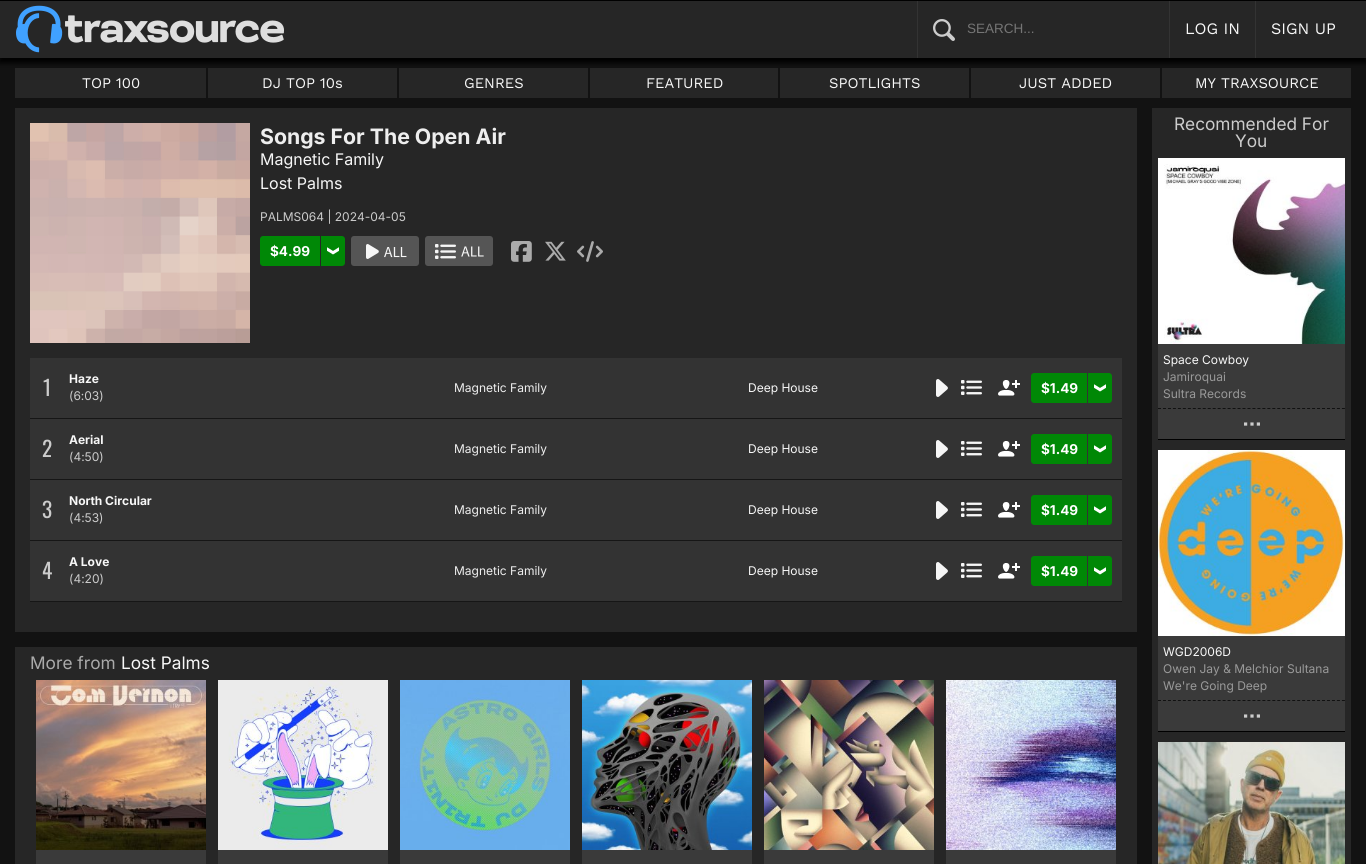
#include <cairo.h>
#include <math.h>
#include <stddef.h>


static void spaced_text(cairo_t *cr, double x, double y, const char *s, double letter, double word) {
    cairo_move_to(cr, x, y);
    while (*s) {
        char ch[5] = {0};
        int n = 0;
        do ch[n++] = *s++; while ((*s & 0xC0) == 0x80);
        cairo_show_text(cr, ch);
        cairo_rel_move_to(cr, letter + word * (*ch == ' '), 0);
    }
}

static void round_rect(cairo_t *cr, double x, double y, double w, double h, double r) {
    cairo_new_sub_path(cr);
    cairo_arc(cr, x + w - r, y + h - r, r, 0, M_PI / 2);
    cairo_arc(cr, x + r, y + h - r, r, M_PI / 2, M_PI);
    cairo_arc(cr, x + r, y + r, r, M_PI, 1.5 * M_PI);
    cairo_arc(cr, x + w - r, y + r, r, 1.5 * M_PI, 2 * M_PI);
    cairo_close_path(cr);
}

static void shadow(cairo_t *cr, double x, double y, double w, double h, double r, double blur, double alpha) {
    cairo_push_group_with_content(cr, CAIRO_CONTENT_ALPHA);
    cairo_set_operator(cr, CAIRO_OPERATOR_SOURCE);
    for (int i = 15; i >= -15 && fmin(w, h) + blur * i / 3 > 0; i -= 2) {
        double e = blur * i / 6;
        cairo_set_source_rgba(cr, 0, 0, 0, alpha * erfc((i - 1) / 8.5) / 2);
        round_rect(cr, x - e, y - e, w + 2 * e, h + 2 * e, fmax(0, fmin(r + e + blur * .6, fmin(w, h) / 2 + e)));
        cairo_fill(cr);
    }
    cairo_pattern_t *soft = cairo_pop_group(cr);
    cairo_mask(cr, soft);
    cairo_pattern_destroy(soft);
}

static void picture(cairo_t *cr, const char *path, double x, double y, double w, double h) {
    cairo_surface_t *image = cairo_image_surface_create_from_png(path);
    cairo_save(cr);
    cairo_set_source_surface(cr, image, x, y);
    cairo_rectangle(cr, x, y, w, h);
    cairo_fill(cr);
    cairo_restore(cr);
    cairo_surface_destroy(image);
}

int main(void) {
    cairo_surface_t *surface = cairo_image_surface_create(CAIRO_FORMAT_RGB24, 1366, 864);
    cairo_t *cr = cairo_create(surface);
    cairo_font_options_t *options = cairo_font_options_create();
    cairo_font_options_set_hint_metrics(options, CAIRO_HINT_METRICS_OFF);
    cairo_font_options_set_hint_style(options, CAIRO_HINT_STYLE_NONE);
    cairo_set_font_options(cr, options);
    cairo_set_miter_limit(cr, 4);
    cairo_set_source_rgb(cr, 0.071, 0.071, 0.071);
    cairo_paint(cr);
    cairo_set_source_rgb(cr, 0.149, 0.149, 0.149);
    cairo_rectangle(cr, 15, 68, 191, 30);
    cairo_fill(cr);
    cairo_rectangle(cr, 208, 68, 189, 30);
    cairo_fill(cr);
    cairo_rectangle(cr, 399, 68, 189, 30);
    cairo_fill(cr);
    cairo_rectangle(cr, 590, 68, 188, 30);
    cairo_fill(cr);
    cairo_rectangle(cr, 780, 68, 189, 30);
    cairo_fill(cr);
    cairo_rectangle(cr, 971, 68, 189, 30);
    cairo_fill(cr);
    cairo_rectangle(cr, 1162, 68, 189, 30);
    cairo_fill(cr);
    cairo_set_source_rgb(cr, 0, 0, 0);
    shadow(cr, -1, 3, 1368, 60, 0, 2.5, 1);
    cairo_set_source_rgb(cr, 0.149, 0.149, 0.149);
    cairo_rectangle(cr, 0, 1, 1366, 57);
    cairo_fill(cr);
    cairo_set_source_rgb(cr, 0.2, 0.2, 0.2);
    cairo_rectangle(cr, 917, 0, 1, 58);
    cairo_fill(cr);
    cairo_rectangle(cr, 1169, 0, 1, 58);
    cairo_fill(cr);
    cairo_rectangle(cr, 1255, 0, 1, 58);
    cairo_fill(cr);
    cairo_set_source_rgb(cr, 0, 0, 0);
    cairo_rectangle(cr, 0, 0, 1366, 1);
    cairo_fill(cr);
    picture(cr, "img1.png", 16, 5, 268, 48);
    picture(cr, "img2.png", 933, 19, 22, 22);
    cairo_select_font_face(cr, "Liberation Sans", CAIRO_FONT_SLANT_NORMAL, CAIRO_FONT_WEIGHT_NORMAL);
    cairo_set_font_size(cr, 13.5);
    cairo_set_source_rgb(cr, 0.459, 0.459, 0.459);
    cairo_move_to(cr, 967, 33);
    cairo_show_text(cr, "SEARCH...");
    cairo_select_font_face(cr, "Work Sans", CAIRO_FONT_SLANT_NORMAL, CAIRO_FONT_WEIGHT_NORMAL);
    cairo_set_font_size(cr, 16);
    cairo_set_source_rgb(cr, 0.965, 0.965, 0.965);
    cairo_move_to(cr, 1185, 34);
    cairo_show_text(cr, "LOG IN");
    cairo_move_to(cr, 1271, 34);
    cairo_show_text(cr, "SIGN UP");
    cairo_set_font_size(cr, 14.75);
    cairo_move_to(cr, 82, 88);
    cairo_show_text(cr, "TOP 100");
    cairo_move_to(cr, 262, 88);
    cairo_show_text(cr, "DJ TOP 10s");
    cairo_move_to(cr, 464, 88);
    cairo_show_text(cr, "GENRES");
    cairo_move_to(cr, 646, 88);
    cairo_show_text(cr, "FEATURED");
    cairo_move_to(cr, 829, 88);
    cairo_show_text(cr, "SPOTLIGHTS");
    cairo_move_to(cr, 1019, 88);
    cairo_show_text(cr, "JUST ADDED");
    cairo_move_to(cr, 1195, 88);
    cairo_show_text(cr, "MY TRAXSOURCE");
    cairo_set_source_rgb(cr, 0.149, 0.149, 0.149);
    cairo_rectangle(cr, 15, 108, 1122, 756);
    cairo_fill(cr);
    picture(cr, "img3.png", 30, 123, 220, 220);
    cairo_select_font_face(cr, "Inter", CAIRO_FONT_SLANT_NORMAL, CAIRO_FONT_WEIGHT_BOLD);
    cairo_set_font_size(cr, 21.25);
    cairo_set_source_rgb(cr, 0.933, 0.933, 0.933);
    cairo_move_to(cr, 260, 144);
    cairo_show_text(cr, "Songs For The Open Air");
    cairo_select_font_face(cr, "Inter", CAIRO_FONT_SLANT_NORMAL, CAIRO_FONT_WEIGHT_NORMAL);
    cairo_set_font_size(cr, 16);
    cairo_set_source_rgb(cr, 0.965, 0.965, 0.965);
    cairo_move_to(cr, 260, 165);
    cairo_show_text(cr, "Magnetic Family");
    cairo_move_to(cr, 260, 189);
    cairo_show_text(cr, "Lost Palms");
    cairo_set_font_size(cr, 12);
    cairo_set_source_rgb(cr, 0.8, 0.8, 0.8);
    cairo_move_to(cr, 260, 221);
    cairo_show_text(cr, "PALMS064 | 2024-04-05");
    cairo_set_source_rgb(cr, 0, 0.533, 0.024);
    cairo_new_path(cr);
    cairo_move_to(cr, 263, 236);
    cairo_line_to(cr, 320, 236);
    cairo_line_to(cr, 320, 266);
    cairo_line_to(cr, 263, 266);
    cairo_curve_to(cr, 261.5, 266, 260, 264.5, 260, 263);
    cairo_line_to(cr, 260, 239);
    cairo_curve_to(cr, 260, 237.5, 261.5, 236, 263, 236);
    cairo_close_path(cr);
    cairo_fill(cr);
    cairo_select_font_face(cr, "Inter", CAIRO_FONT_SLANT_NORMAL, CAIRO_FONT_WEIGHT_BOLD);
    cairo_set_font_size(cr, 13.5);
    cairo_set_source_rgb(cr, 1, 1, 1);
    cairo_move_to(cr, 270, 256);
    cairo_show_text(cr, "$4.99");
    cairo_set_source_rgb(cr, 0, 0.533, 0.024);
    cairo_new_path(cr);
    cairo_move_to(cr, 321, 236);
    cairo_line_to(cr, 342, 236);
    cairo_curve_to(cr, 343.5, 236, 345, 237.5, 345, 239);
    cairo_line_to(cr, 345, 263);
    cairo_curve_to(cr, 345, 264.5, 343.5, 266, 342, 266);
    cairo_line_to(cr, 321, 266);
    cairo_close_path(cr);
    cairo_fill(cr);
    picture(cr, "img4.png", 327, 247, 12, 8);
    cairo_set_source_rgb(cr, 0.333, 0.333, 0.333);
    round_rect(cr, 351, 236, 68, 30, 3);
    cairo_fill(cr);
    picture(cr, "img5.png", 366, 244, 41, 15);
    round_rect(cr, 425, 236, 68, 30, 3);
    cairo_fill(cr);
    picture(cr, "img6.png", 435, 244, 49, 15);
    picture(cr, "img7.png", 511, 241, 21, 21);
    picture(cr, "img8.png", 545, 241, 21, 20);
    picture(cr, "img9.png", 577, 241, 26, 21);
    cairo_set_source_rgb(cr, 0.2, 0.2, 0.2);
    cairo_rectangle(cr, 30, 358, 1092, 60);
    cairo_fill(cr);
    cairo_set_source_rgb(cr, 0.086, 0.086, 0.086);
    cairo_rectangle(cr, 30, 418, 1092, 1);
    cairo_fill(cr);
    cairo_select_font_face(cr, "Oswald", CAIRO_FONT_SLANT_NORMAL, CAIRO_FONT_WEIGHT_NORMAL);
    cairo_set_font_size(cr, 21.25);
    cairo_set_source_rgb(cr, 0.8, 0.8, 0.8);
    spaced_text(cr, 43, 396, "1", -1, 0);
    cairo_select_font_face(cr, "Inter", CAIRO_FONT_SLANT_NORMAL, CAIRO_FONT_WEIGHT_BOLD);
    cairo_set_font_size(cr, 12);
    cairo_set_source_rgb(cr, 0.965, 0.965, 0.965);
    cairo_move_to(cr, 69, 383);
    cairo_show_text(cr, "Haze");
    cairo_select_font_face(cr, "Inter", CAIRO_FONT_SLANT_NORMAL, CAIRO_FONT_WEIGHT_NORMAL);
    cairo_set_source_rgb(cr, 0.8, 0.8, 0.8);
    cairo_move_to(cr, 69, 400);
    cairo_show_text(cr, "(6:03)");
    cairo_set_source_rgb(cr, 0.933, 0.933, 0.933);
    cairo_move_to(cr, 454, 392);
    cairo_show_text(cr, "Magnetic Family");
    cairo_set_source_rgb(cr, 0.965, 0.965, 0.965);
    cairo_move_to(cr, 748, 392);
    cairo_show_text(cr, "Deep House");
    picture(cr, "img10.png", 936, 379, 12, 18);
    picture(cr, "img11.png", 961, 380, 21, 15);
    picture(cr, "img12.png", 998, 380, 22, 16);
    cairo_set_source_rgb(cr, 0, 0.533, 0.024);
    cairo_new_path(cr);
    cairo_move_to(cr, 1034, 373);
    cairo_line_to(cr, 1087, 373);
    cairo_line_to(cr, 1087, 403);
    cairo_line_to(cr, 1034, 403);
    cairo_curve_to(cr, 1032.5, 403, 1031, 401.5, 1031, 400);
    cairo_line_to(cr, 1031, 376);
    cairo_curve_to(cr, 1031, 374.5, 1032.5, 373, 1034, 373);
    cairo_close_path(cr);
    cairo_fill(cr);
    cairo_select_font_face(cr, "Inter", CAIRO_FONT_SLANT_NORMAL, CAIRO_FONT_WEIGHT_BOLD);
    cairo_set_font_size(cr, 13.5);
    cairo_set_source_rgb(cr, 1, 1, 1);
    cairo_move_to(cr, 1041, 393);
    cairo_show_text(cr, "$1.49");
    cairo_set_source_rgb(cr, 0, 0.533, 0.024);
    cairo_new_path(cr);
    cairo_move_to(cr, 1088, 373);
    cairo_line_to(cr, 1109, 373);
    cairo_curve_to(cr, 1110.5, 373, 1112, 374.5, 1112, 376);
    cairo_line_to(cr, 1112, 400);
    cairo_curve_to(cr, 1112, 401.5, 1110.5, 403, 1109, 403);
    cairo_line_to(cr, 1088, 403);
    cairo_close_path(cr);
    cairo_fill(cr);
    picture(cr, "img4.png", 1094, 384, 12, 8);
    cairo_set_source_rgb(cr, 0.2, 0.2, 0.2);
    cairo_rectangle(cr, 30, 419, 1092, 60);
    cairo_fill(cr);
    cairo_set_source_rgb(cr, 0.086, 0.086, 0.086);
    cairo_rectangle(cr, 30, 479, 1092, 1);
    cairo_fill(cr);
    cairo_select_font_face(cr, "Oswald", CAIRO_FONT_SLANT_NORMAL, CAIRO_FONT_WEIGHT_NORMAL);
    cairo_set_font_size(cr, 21.25);
    cairo_set_source_rgb(cr, 0.8, 0.8, 0.8);
    spaced_text(cr, 42, 457, "2", -1, 0);
    cairo_select_font_face(cr, "Inter", CAIRO_FONT_SLANT_NORMAL, CAIRO_FONT_WEIGHT_BOLD);
    cairo_set_font_size(cr, 12);
    cairo_set_source_rgb(cr, 0.965, 0.965, 0.965);
    cairo_move_to(cr, 69, 444);
    cairo_show_text(cr, "Aerial");
    cairo_select_font_face(cr, "Inter", CAIRO_FONT_SLANT_NORMAL, CAIRO_FONT_WEIGHT_NORMAL);
    cairo_set_source_rgb(cr, 0.8, 0.8, 0.8);
    cairo_move_to(cr, 69, 461);
    cairo_show_text(cr, "(4:50)");
    cairo_set_source_rgb(cr, 0.933, 0.933, 0.933);
    cairo_move_to(cr, 454, 453);
    cairo_show_text(cr, "Magnetic Family");
    cairo_set_source_rgb(cr, 0.965, 0.965, 0.965);
    cairo_move_to(cr, 748, 453);
    cairo_show_text(cr, "Deep House");
    picture(cr, "img10.png", 936, 440, 12, 18);
    picture(cr, "img11.png", 961, 441, 21, 15);
    picture(cr, "img12.png", 998, 441, 22, 16);
    cairo_set_source_rgb(cr, 0, 0.533, 0.024);
    cairo_new_path(cr);
    cairo_move_to(cr, 1034, 434);
    cairo_line_to(cr, 1087, 434);
    cairo_line_to(cr, 1087, 464);
    cairo_line_to(cr, 1034, 464);
    cairo_curve_to(cr, 1032.5, 464, 1031, 462.5, 1031, 461);
    cairo_line_to(cr, 1031, 437);
    cairo_curve_to(cr, 1031, 435.5, 1032.5, 434, 1034, 434);
    cairo_close_path(cr);
    cairo_fill(cr);
    cairo_select_font_face(cr, "Inter", CAIRO_FONT_SLANT_NORMAL, CAIRO_FONT_WEIGHT_BOLD);
    cairo_set_font_size(cr, 13.5);
    cairo_set_source_rgb(cr, 1, 1, 1);
    cairo_move_to(cr, 1041, 454);
    cairo_show_text(cr, "$1.49");
    cairo_set_source_rgb(cr, 0, 0.533, 0.024);
    cairo_new_path(cr);
    cairo_move_to(cr, 1088, 434);
    cairo_line_to(cr, 1109, 434);
    cairo_curve_to(cr, 1110.5, 434, 1112, 435.5, 1112, 437);
    cairo_line_to(cr, 1112, 461);
    cairo_curve_to(cr, 1112, 462.5, 1110.5, 464, 1109, 464);
    cairo_line_to(cr, 1088, 464);
    cairo_close_path(cr);
    cairo_fill(cr);
    picture(cr, "img4.png", 1094, 445, 12, 8);
    cairo_set_source_rgb(cr, 0.2, 0.2, 0.2);
    cairo_rectangle(cr, 30, 480, 1092, 60);
    cairo_fill(cr);
    cairo_set_source_rgb(cr, 0.086, 0.086, 0.086);
    cairo_rectangle(cr, 30, 540, 1092, 1);
    cairo_fill(cr);
    cairo_select_font_face(cr, "Oswald", CAIRO_FONT_SLANT_NORMAL, CAIRO_FONT_WEIGHT_NORMAL);
    cairo_set_font_size(cr, 21.25);
    cairo_set_source_rgb(cr, 0.8, 0.8, 0.8);
    spaced_text(cr, 42, 518, "3", -1, 0);
    cairo_select_font_face(cr, "Inter", CAIRO_FONT_SLANT_NORMAL, CAIRO_FONT_WEIGHT_BOLD);
    cairo_set_font_size(cr, 12);
    cairo_set_source_rgb(cr, 0.965, 0.965, 0.965);
    cairo_move_to(cr, 69, 505);
    cairo_show_text(cr, "North Circular");
    cairo_select_font_face(cr, "Inter", CAIRO_FONT_SLANT_NORMAL, CAIRO_FONT_WEIGHT_NORMAL);
    cairo_set_source_rgb(cr, 0.8, 0.8, 0.8);
    cairo_move_to(cr, 69, 522);
    cairo_show_text(cr, "(4:53)");
    cairo_set_source_rgb(cr, 0.933, 0.933, 0.933);
    cairo_move_to(cr, 454, 514);
    cairo_show_text(cr, "Magnetic Family");
    cairo_set_source_rgb(cr, 0.965, 0.965, 0.965);
    cairo_move_to(cr, 748, 514);
    cairo_show_text(cr, "Deep House");
    picture(cr, "img10.png", 936, 501, 12, 18);
    picture(cr, "img11.png", 961, 502, 21, 15);
    picture(cr, "img13.png", 998, 502, 22, 16);
    cairo_set_source_rgb(cr, 0, 0.533, 0.024);
    cairo_new_path(cr);
    cairo_move_to(cr, 1034, 495);
    cairo_line_to(cr, 1087, 495);
    cairo_line_to(cr, 1087, 525);
    cairo_line_to(cr, 1034, 525);
    cairo_curve_to(cr, 1032.5, 525, 1031, 523.5, 1031, 522);
    cairo_line_to(cr, 1031, 498);
    cairo_curve_to(cr, 1031, 496.5, 1032.5, 495, 1034, 495);
    cairo_close_path(cr);
    cairo_fill(cr);
    cairo_select_font_face(cr, "Inter", CAIRO_FONT_SLANT_NORMAL, CAIRO_FONT_WEIGHT_BOLD);
    cairo_set_font_size(cr, 13.5);
    cairo_set_source_rgb(cr, 1, 1, 1);
    cairo_move_to(cr, 1041, 515);
    cairo_show_text(cr, "$1.49");
    cairo_set_source_rgb(cr, 0, 0.533, 0.024);
    cairo_new_path(cr);
    cairo_move_to(cr, 1088, 495);
    cairo_line_to(cr, 1109, 495);
    cairo_curve_to(cr, 1110.5, 495, 1112, 496.5, 1112, 498);
    cairo_line_to(cr, 1112, 522);
    cairo_curve_to(cr, 1112, 523.5, 1110.5, 525, 1109, 525);
    cairo_line_to(cr, 1088, 525);
    cairo_close_path(cr);
    cairo_fill(cr);
    picture(cr, "img4.png", 1094, 506, 12, 8);
    cairo_set_source_rgb(cr, 0.2, 0.2, 0.2);
    cairo_rectangle(cr, 30, 541, 1092, 60);
    cairo_fill(cr);
    cairo_set_source_rgb(cr, 0.086, 0.086, 0.086);
    cairo_rectangle(cr, 30, 601, 1092, 1);
    cairo_fill(cr);
    cairo_select_font_face(cr, "Oswald", CAIRO_FONT_SLANT_NORMAL, CAIRO_FONT_WEIGHT_NORMAL);
    cairo_set_font_size(cr, 21.25);
    cairo_set_source_rgb(cr, 0.8, 0.8, 0.8);
    spaced_text(cr, 42, 579, "4", -1, 0);
    cairo_select_font_face(cr, "Inter", CAIRO_FONT_SLANT_NORMAL, CAIRO_FONT_WEIGHT_BOLD);
    cairo_set_font_size(cr, 12);
    cairo_set_source_rgb(cr, 0.965, 0.965, 0.965);
    cairo_move_to(cr, 69, 566);
    cairo_show_text(cr, "A Love");
    cairo_select_font_face(cr, "Inter", CAIRO_FONT_SLANT_NORMAL, CAIRO_FONT_WEIGHT_NORMAL);
    cairo_set_source_rgb(cr, 0.8, 0.8, 0.8);
    cairo_move_to(cr, 69, 583);
    cairo_show_text(cr, "(4:20)");
    cairo_set_source_rgb(cr, 0.933, 0.933, 0.933);
    cairo_move_to(cr, 454, 575);
    cairo_show_text(cr, "Magnetic Family");
    cairo_set_source_rgb(cr, 0.965, 0.965, 0.965);
    cairo_move_to(cr, 748, 575);
    cairo_show_text(cr, "Deep House");
    picture(cr, "img10.png", 936, 562, 12, 18);
    picture(cr, "img11.png", 961, 563, 21, 15);
    picture(cr, "img12.png", 998, 563, 22, 16);
    cairo_set_source_rgb(cr, 0, 0.533, 0.024);
    cairo_new_path(cr);
    cairo_move_to(cr, 1034, 556);
    cairo_line_to(cr, 1087, 556);
    cairo_line_to(cr, 1087, 586);
    cairo_line_to(cr, 1034, 586);
    cairo_curve_to(cr, 1032.5, 586, 1031, 584.5, 1031, 583);
    cairo_line_to(cr, 1031, 559);
    cairo_curve_to(cr, 1031, 557.5, 1032.5, 556, 1034, 556);
    cairo_close_path(cr);
    cairo_fill(cr);
    cairo_select_font_face(cr, "Inter", CAIRO_FONT_SLANT_NORMAL, CAIRO_FONT_WEIGHT_BOLD);
    cairo_set_font_size(cr, 13.5);
    cairo_set_source_rgb(cr, 1, 1, 1);
    cairo_move_to(cr, 1041, 576);
    cairo_show_text(cr, "$1.49");
    cairo_set_source_rgb(cr, 0, 0.533, 0.024);
    cairo_new_path(cr);
    cairo_move_to(cr, 1088, 556);
    cairo_line_to(cr, 1109, 556);
    cairo_curve_to(cr, 1110.5, 556, 1112, 557.5, 1112, 559);
    cairo_line_to(cr, 1112, 583);
    cairo_curve_to(cr, 1112, 584.5, 1110.5, 586, 1109, 586);
    cairo_line_to(cr, 1088, 586);
    cairo_close_path(cr);
    cairo_fill(cr);
    picture(cr, "img4.png", 1094, 567, 12, 8);
    cairo_set_source_rgb(cr, 0.071, 0.071, 0.071);
    cairo_rectangle(cr, 15, 632, 1122, 15);
    cairo_fill(cr);
    cairo_select_font_face(cr, "Inter", CAIRO_FONT_SLANT_NORMAL, CAIRO_FONT_WEIGHT_NORMAL);
    cairo_set_font_size(cr, 17.25);
    cairo_set_source_rgb(cr, 0.667, 0.667, 0.667);
    cairo_move_to(cr, 30, 669);
    cairo_show_text(cr, "More from");
    cairo_set_source_rgb(cr, 0.965, 0.965, 0.965);
    cairo_move_to(cr, 121, 669);
    cairo_show_text(cr, "Lost Palms");
    cairo_set_source_rgb(cr, 0.227, 0.227, 0.227);
    cairo_rectangle(cr, 36, 850, 170, 14);
    cairo_fill(cr);
    picture(cr, "img14.png", 36, 680, 170, 170);
    cairo_rectangle(cr, 218, 850, 170, 14);
    cairo_fill(cr);
    picture(cr, "img15.png", 218, 680, 170, 170);
    cairo_rectangle(cr, 400, 850, 170, 14);
    cairo_fill(cr);
    picture(cr, "img16.png", 400, 680, 170, 170);
    cairo_rectangle(cr, 582, 850, 170, 14);
    cairo_fill(cr);
    picture(cr, "img17.png", 582, 680, 170, 170);
    cairo_rectangle(cr, 764, 850, 170, 14);
    cairo_fill(cr);
    picture(cr, "img18.png", 764, 680, 170, 170);
    cairo_rectangle(cr, 946, 850, 170, 14);
    cairo_fill(cr);
    picture(cr, "img19.png", 946, 680, 170, 170);
    cairo_set_source_rgb(cr, 0.149, 0.149, 0.149);
    cairo_rectangle(cr, 1152, 108, 199, 756);
    cairo_fill(cr);
    cairo_set_source_rgb(cr, 0.8, 0.8, 0.8);
    cairo_move_to(cr, 1174, 130);
    cairo_show_text(cr, "Recommended For");
    cairo_move_to(cr, 1235, 147);
    cairo_show_text(cr, "You");
    cairo_set_source_rgb(cr, 0.227, 0.227, 0.227);
    cairo_rectangle(cr, 1158, 344, 187, 95);
    cairo_fill(cr);
    picture(cr, "img20.png", 1158, 158, 187, 186);
    cairo_set_font_size(cr, 12);
    cairo_set_source_rgb(cr, 0.965, 0.965, 0.965);
    cairo_move_to(cr, 1163, 364);
    cairo_show_text(cr, "Space Cowboy");
    cairo_set_source_rgb(cr, 0.6, 0.6, 0.6);
    cairo_move_to(cr, 1163, 381);
    cairo_show_text(cr, "Jamiroquai");
    cairo_move_to(cr, 1163, 398);
    cairo_show_text(cr, "Sultra Records");
    cairo_new_path(cr);
    cairo_move_to(cr, 1158, 408.5);
    cairo_line_to(cr, 1345, 408.5);
    cairo_set_source_rgb(cr, 0.067, 0.067, 0.067);
    cairo_set_line_width(cr, 1);
    cairo_set_dash(cr, (double[]){3, 1.97}, 2, 0);
    cairo_stroke(cr);
    cairo_set_source_rgb(cr, 0, 0, 0);
    cairo_rectangle(cr, 1158, 439, 187, 1);
    cairo_fill(cr);
    picture(cr, "img21.png", 1244, 422, 16, 4);
    cairo_set_source_rgb(cr, 0.227, 0.227, 0.227);
    cairo_rectangle(cr, 1158, 636, 187, 95);
    cairo_fill(cr);
    picture(cr, "img22.png", 1158, 450, 187, 186);
    cairo_set_source_rgb(cr, 0.965, 0.965, 0.965);
    cairo_move_to(cr, 1163, 656);
    cairo_show_text(cr, "WGD2006D");
    cairo_set_source_rgb(cr, 0.6, 0.6, 0.6);
    cairo_move_to(cr, 1163, 673);
    cairo_show_text(cr, "Owen Jay & Melchior Sultana");
    cairo_move_to(cr, 1163, 690);
    cairo_show_text(cr, "We're Going Deep");
    cairo_new_path(cr);
    cairo_move_to(cr, 1158, 700.5);
    cairo_line_to(cr, 1345, 700.5);
    cairo_set_source_rgb(cr, 0.067, 0.067, 0.067);
    cairo_stroke(cr);
    cairo_set_source_rgb(cr, 0, 0, 0);
    cairo_rectangle(cr, 1158, 731, 187, 1);
    cairo_fill(cr);
    picture(cr, "img21.png", 1244, 714, 16, 4);
    picture(cr, "img23.png", 1158, 742, 187, 122);
    cairo_surface_write_to_png(surface, "page.png");
    cairo_font_options_destroy(options);
    cairo_destroy(cr);
    cairo_surface_destroy(surface);
    return 0;
}
